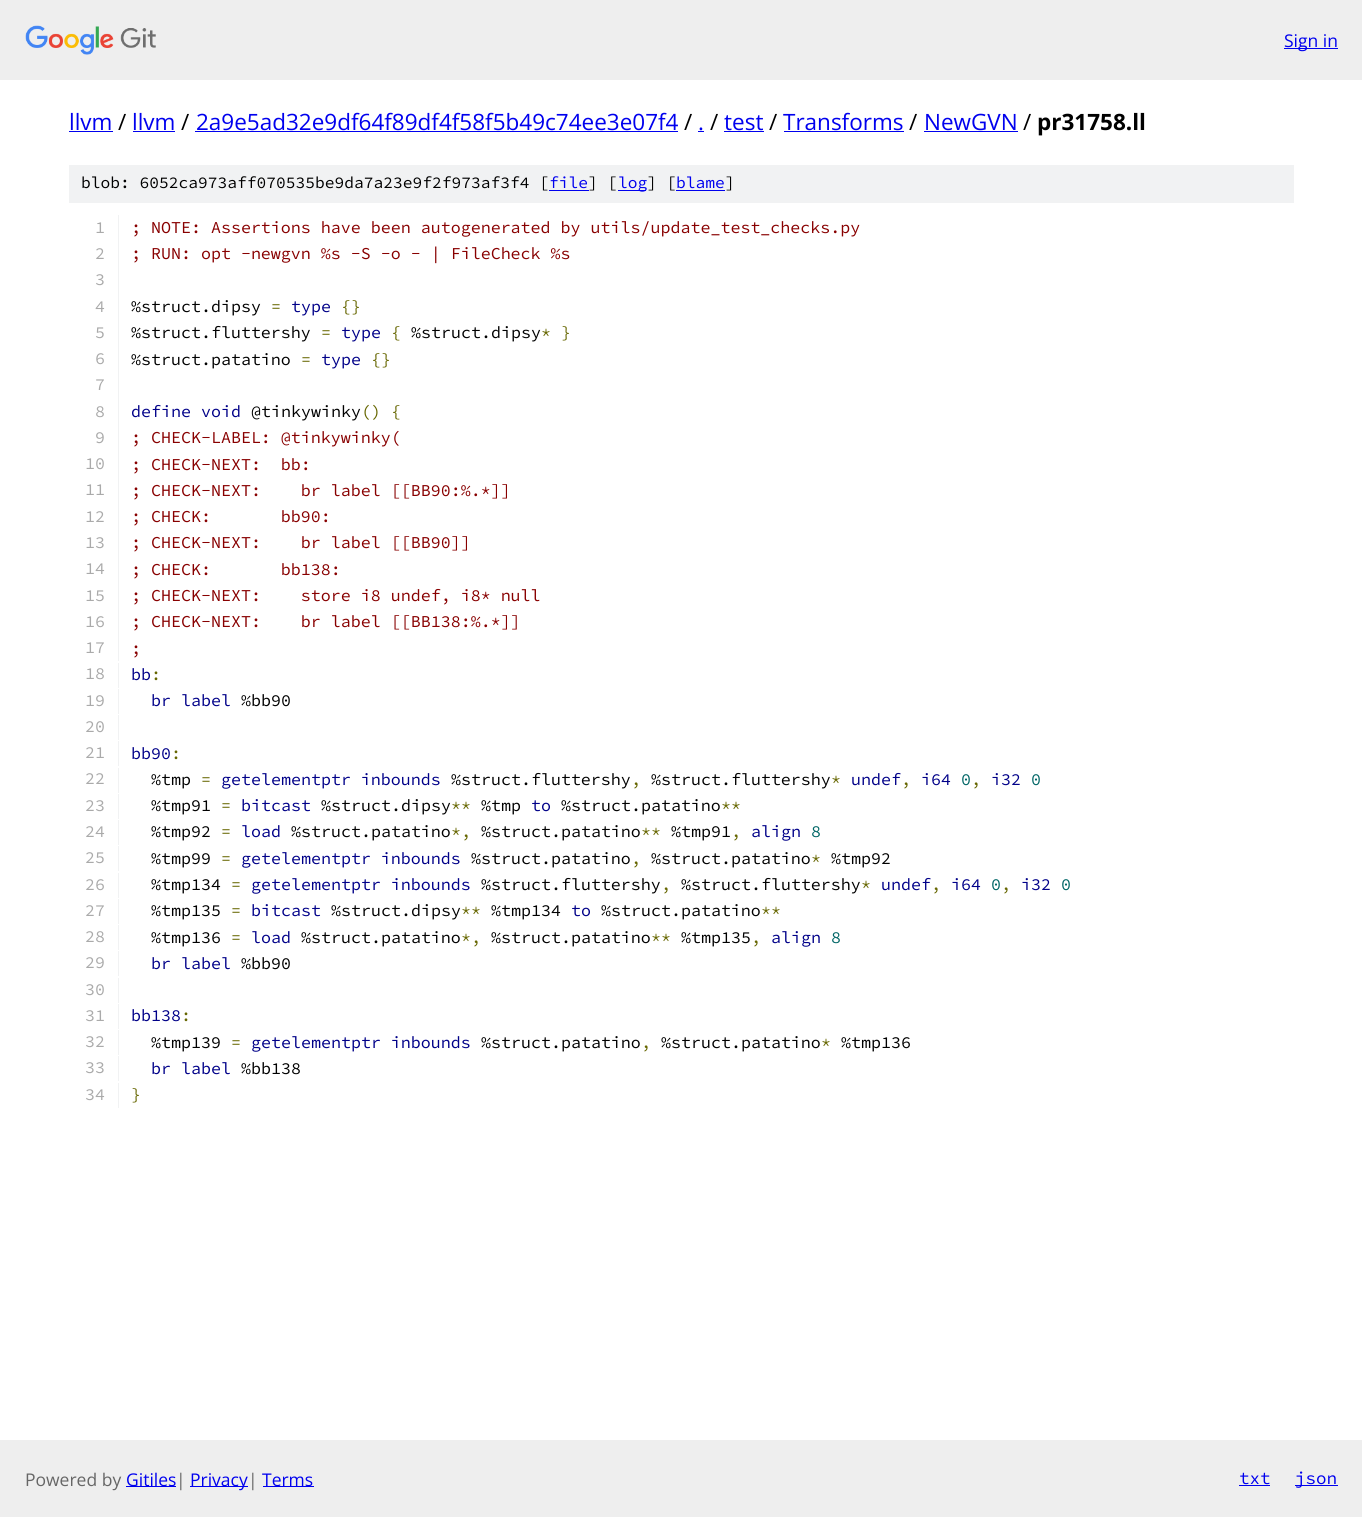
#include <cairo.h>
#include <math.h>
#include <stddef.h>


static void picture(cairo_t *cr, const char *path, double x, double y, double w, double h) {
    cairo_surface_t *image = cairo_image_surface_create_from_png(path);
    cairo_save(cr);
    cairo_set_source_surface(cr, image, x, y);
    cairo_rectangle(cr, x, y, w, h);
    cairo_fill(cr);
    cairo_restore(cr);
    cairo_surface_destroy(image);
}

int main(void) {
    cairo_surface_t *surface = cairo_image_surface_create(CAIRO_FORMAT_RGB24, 1362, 1517);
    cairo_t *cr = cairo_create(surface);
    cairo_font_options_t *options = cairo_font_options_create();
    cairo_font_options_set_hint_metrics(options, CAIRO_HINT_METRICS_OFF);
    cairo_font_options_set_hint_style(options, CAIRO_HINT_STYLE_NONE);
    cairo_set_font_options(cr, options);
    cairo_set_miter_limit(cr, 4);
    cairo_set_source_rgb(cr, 1, 1, 1);
    cairo_paint(cr);
    cairo_set_source_rgb(cr, 0.933, 0.933, 0.933);
    cairo_rectangle(cr, 0, 0, 1362, 80);
    cairo_fill(cr);
    picture(cr, "img1.png", 25, 25, 131, 30);
    cairo_set_source_rgb(cr, 0, 0, 0.933);
    cairo_rectangle(cr, 1284, 48, 54, 1);
    cairo_fill(cr);
    cairo_select_font_face(cr, "Open Sans", CAIRO_FONT_SLANT_NORMAL, CAIRO_FONT_WEIGHT_NORMAL);
    cairo_set_font_size(cr, 17.5);
    cairo_move_to(cr, 1284, 47);
    cairo_show_text(cr, "Sign in");
    cairo_set_font_size(cr, 22.5);
    cairo_move_to(cr, 69, 130);
    cairo_show_text(cr, "llvm");
    cairo_rectangle(cr, 69, 131, 44, 1);
    cairo_fill(cr);
    cairo_set_source_rgb(cr, 0, 0, 0);
    cairo_move_to(cr, 118, 130);
    cairo_show_text(cr, "/");
    cairo_set_source_rgb(cr, 0, 0, 0.933);
    cairo_move_to(cr, 132, 130);
    cairo_show_text(cr, "llvm");
    cairo_rectangle(cr, 133, 131, 42, 1);
    cairo_fill(cr);
    cairo_set_source_rgb(cr, 0, 0, 0);
    cairo_move_to(cr, 181, 130);
    cairo_show_text(cr, "/");
    cairo_set_source_rgb(cr, 0, 0, 0.933);
    cairo_move_to(cr, 196, 130);
    cairo_show_text(cr, "2a9e5ad32e9df64f89df4f58f5b49c74ee3e07f4");
    cairo_rectangle(cr, 195, 131, 483, 1);
    cairo_fill(cr);
    cairo_set_source_rgb(cr, 0, 0, 0);
    cairo_move_to(cr, 684, 130);
    cairo_show_text(cr, "/");
    cairo_set_source_rgb(cr, 0, 0, 0.933);
    cairo_move_to(cr, 698, 130);
    cairo_show_text(cr, ".");
    cairo_rectangle(cr, 698, 131, 6, 1);
    cairo_fill(cr);
    cairo_set_source_rgb(cr, 0, 0, 0);
    cairo_move_to(cr, 710, 130);
    cairo_show_text(cr, "/");
    cairo_set_source_rgb(cr, 0, 0, 0.933);
    cairo_move_to(cr, 724, 130);
    cairo_show_text(cr, "test");
    cairo_rectangle(cr, 724, 131, 40, 1);
    cairo_fill(cr);
    cairo_set_source_rgb(cr, 0, 0, 0);
    cairo_move_to(cr, 769, 130);
    cairo_show_text(cr, "/");
    cairo_set_source_rgb(cr, 0, 0, 0.933);
    cairo_move_to(cr, 783, 130);
    cairo_show_text(cr, "Transforms");
    cairo_rectangle(cr, 784, 131, 120, 1);
    cairo_fill(cr);
    cairo_set_source_rgb(cr, 0, 0, 0);
    cairo_move_to(cr, 909, 130);
    cairo_show_text(cr, "/");
    cairo_set_source_rgb(cr, 0, 0, 0.933);
    cairo_move_to(cr, 924, 130);
    cairo_show_text(cr, "NewGVN");
    cairo_rectangle(cr, 924, 131, 94, 1);
    cairo_fill(cr);
    cairo_set_source_rgb(cr, 0, 0, 0);
    cairo_move_to(cr, 1023, 130);
    cairo_show_text(cr, "/");
    cairo_select_font_face(cr, "Open Sans", CAIRO_FONT_SLANT_NORMAL, CAIRO_FONT_WEIGHT_BOLD);
    cairo_move_to(cr, 1037, 130);
    cairo_show_text(cr, "pr31758.ll");
    cairo_set_source_rgb(cr, 0.945, 0.949, 0.953);
    cairo_rectangle(cr, 69, 165, 1225, 38);
    cairo_fill(cr);
    cairo_select_font_face(cr, "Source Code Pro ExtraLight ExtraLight", CAIRO_FONT_SLANT_NORMAL, CAIRO_FONT_WEIGHT_NORMAL);
    cairo_set_font_size(cr, 16.25);
    cairo_set_source_rgb(cr, 0, 0, 0);
    cairo_move_to(cr, 81, 188);
    cairo_show_text(cr, "blob: 6052ca973aff070535be9da7a23e9f2f973af3f4 [");
    cairo_set_source_rgb(cr, 0, 0, 0.933);
    cairo_move_to(cr, 549, 188);
    cairo_show_text(cr, "file");
    cairo_rectangle(cr, 549, 190, 40, 1);
    cairo_fill(cr);
    cairo_set_source_rgb(cr, 0, 0, 0);
    cairo_move_to(cr, 588, 188);
    cairo_show_text(cr, "] [");
    cairo_set_source_rgb(cr, 0, 0, 0.933);
    cairo_rectangle(cr, 618, 190, 28, 1);
    cairo_fill(cr);
    cairo_move_to(cr, 618, 188);
    cairo_show_text(cr, "log");
    cairo_set_source_rgb(cr, 0, 0, 0);
    cairo_move_to(cr, 647, 188);
    cairo_show_text(cr, "] [");
    cairo_set_source_rgb(cr, 0, 0, 0.933);
    cairo_move_to(cr, 676, 188);
    cairo_show_text(cr, "blame");
    cairo_rectangle(cr, 676, 190, 49, 1);
    cairo_fill(cr);
    cairo_set_source_rgb(cr, 0, 0, 0);
    cairo_move_to(cr, 725, 188);
    cairo_show_text(cr, "]");
    cairo_set_source_rgb(cr, 0.945, 0.949, 0.953);
    cairo_rectangle(cr, 118, 215, 1, 446);
    cairo_fill(cr);
    cairo_set_font_size(cr, 16.65);
    cairo_set_source_rgb(cr, 0.667, 0.667, 0.667);
    cairo_move_to(cr, 95, 233);
    cairo_show_text(cr, "1");
    cairo_set_source_rgb(cr, 0.533, 0, 0);
    cairo_move_to(cr, 131, 233);
    cairo_show_text(cr, "; NOTE: Assertions have been autogenerated by utils/update_test_checks.py");
    cairo_set_source_rgb(cr, 0.667, 0.667, 0.667);
    cairo_move_to(cr, 95, 259);
    cairo_show_text(cr, "2");
    cairo_set_source_rgb(cr, 0.533, 0, 0);
    cairo_move_to(cr, 131, 259);
    cairo_show_text(cr, "; RUN: opt -newgvn %s -S -o - | FileCheck %s");
    cairo_set_source_rgb(cr, 0.667, 0.667, 0.667);
    cairo_move_to(cr, 95, 285);
    cairo_show_text(cr, "3");
    cairo_move_to(cr, 95, 312);
    cairo_show_text(cr, "4");
    cairo_set_source_rgb(cr, 0, 0, 0);
    cairo_move_to(cr, 131, 312);
    cairo_show_text(cr, "%struct.dipsy");
    cairo_set_source_rgb(cr, 0.4, 0.4, 0);
    cairo_move_to(cr, 271, 312);
    cairo_show_text(cr, "=");
    cairo_set_source_rgb(cr, 0, 0, 0.533);
    cairo_move_to(cr, 291, 312);
    cairo_show_text(cr, "type");
    cairo_set_source_rgb(cr, 0.4, 0.4, 0);
    cairo_move_to(cr, 341, 312);
    cairo_show_text(cr, "{}");
    cairo_set_source_rgb(cr, 0.667, 0.667, 0.667);
    cairo_move_to(cr, 95, 338);
    cairo_show_text(cr, "5");
    cairo_set_source_rgb(cr, 0, 0, 0);
    cairo_move_to(cr, 131, 338);
    cairo_show_text(cr, "%struct.fluttershy");
    cairo_set_source_rgb(cr, 0.4, 0.4, 0);
    cairo_move_to(cr, 321, 338);
    cairo_show_text(cr, "=");
    cairo_set_source_rgb(cr, 0, 0, 0.533);
    cairo_move_to(cr, 341, 338);
    cairo_show_text(cr, "type");
    cairo_set_source_rgb(cr, 0.4, 0.4, 0);
    cairo_move_to(cr, 391, 338);
    cairo_show_text(cr, "{");
    cairo_set_source_rgb(cr, 0, 0, 0);
    cairo_move_to(cr, 411, 338);
    cairo_show_text(cr, "%struct.dipsy");
    cairo_set_source_rgb(cr, 0.4, 0.4, 0);
    cairo_move_to(cr, 541, 338);
    cairo_show_text(cr, "* }");
    cairo_set_source_rgb(cr, 0.667, 0.667, 0.667);
    cairo_move_to(cr, 95, 364);
    cairo_show_text(cr, "6");
    cairo_set_source_rgb(cr, 0, 0, 0);
    cairo_move_to(cr, 131, 365);
    cairo_show_text(cr, "%struct.patatino");
    cairo_set_source_rgb(cr, 0.4, 0.4, 0);
    cairo_move_to(cr, 301, 365);
    cairo_show_text(cr, "=");
    cairo_set_source_rgb(cr, 0, 0, 0.533);
    cairo_move_to(cr, 321, 365);
    cairo_show_text(cr, "type");
    cairo_set_source_rgb(cr, 0.4, 0.4, 0);
    cairo_move_to(cr, 371, 365);
    cairo_show_text(cr, "{}");
    cairo_set_source_rgb(cr, 0.667, 0.667, 0.667);
    cairo_move_to(cr, 95, 390);
    cairo_show_text(cr, "7");
    cairo_move_to(cr, 95, 417);
    cairo_show_text(cr, "8");
    cairo_set_source_rgb(cr, 0, 0, 0.533);
    cairo_move_to(cr, 131, 417);
    cairo_show_text(cr, "define void");
    cairo_set_source_rgb(cr, 0, 0, 0);
    cairo_move_to(cr, 251, 417);
    cairo_show_text(cr, "@tinkywinky");
    cairo_set_source_rgb(cr, 0.4, 0.4, 0);
    cairo_move_to(cr, 361, 417);
    cairo_show_text(cr, "() {");
    cairo_set_source_rgb(cr, 0.667, 0.667, 0.667);
    cairo_move_to(cr, 95, 443);
    cairo_show_text(cr, "9");
    cairo_set_source_rgb(cr, 0.533, 0, 0);
    cairo_move_to(cr, 131, 443);
    cairo_show_text(cr, "; CHECK-LABEL: @tinkywinky(");
    cairo_set_source_rgb(cr, 0.667, 0.667, 0.667);
    cairo_move_to(cr, 85, 469);
    cairo_show_text(cr, "10");
    cairo_set_source_rgb(cr, 0.533, 0, 0);
    cairo_move_to(cr, 131, 470);
    cairo_show_text(cr, "; CHECK-NEXT:  bb:");
    cairo_set_source_rgb(cr, 0.667, 0.667, 0.667);
    cairo_move_to(cr, 85, 495);
    cairo_show_text(cr, "11");
    cairo_set_source_rgb(cr, 0.533, 0, 0);
    cairo_move_to(cr, 131, 496);
    cairo_show_text(cr, "; CHECK-NEXT:    br label [[BB90:%.*]]");
    cairo_set_source_rgb(cr, 0.667, 0.667, 0.667);
    cairo_move_to(cr, 85, 522);
    cairo_show_text(cr, "12");
    cairo_set_source_rgb(cr, 0.533, 0, 0);
    cairo_move_to(cr, 131, 522);
    cairo_show_text(cr, "; CHECK:       bb90:");
    cairo_set_source_rgb(cr, 0.667, 0.667, 0.667);
    cairo_move_to(cr, 85, 548);
    cairo_show_text(cr, "13");
    cairo_set_source_rgb(cr, 0.533, 0, 0);
    cairo_move_to(cr, 131, 548);
    cairo_show_text(cr, "; CHECK-NEXT:    br label [[BB90]]");
    cairo_set_source_rgb(cr, 0.667, 0.667, 0.667);
    cairo_move_to(cr, 85, 574);
    cairo_show_text(cr, "14");
    cairo_set_source_rgb(cr, 0.533, 0, 0);
    cairo_move_to(cr, 131, 575);
    cairo_show_text(cr, "; CHECK:       bb138:");
    cairo_set_source_rgb(cr, 0.667, 0.667, 0.667);
    cairo_move_to(cr, 85, 601);
    cairo_show_text(cr, "15");
    cairo_set_source_rgb(cr, 0.533, 0, 0);
    cairo_move_to(cr, 131, 601);
    cairo_show_text(cr, "; CHECK-NEXT:    store i8 undef, i8* null");
    cairo_set_source_rgb(cr, 0.667, 0.667, 0.667);
    cairo_move_to(cr, 85, 627);
    cairo_show_text(cr, "16");
    cairo_set_source_rgb(cr, 0.533, 0, 0);
    cairo_move_to(cr, 131, 627);
    cairo_show_text(cr, "; CHECK-NEXT:    br label [[BB138:%.*]]");
    cairo_set_source_rgb(cr, 0.667, 0.667, 0.667);
    cairo_move_to(cr, 85, 653);
    cairo_show_text(cr, "17");
    cairo_set_source_rgb(cr, 0.533, 0, 0);
    cairo_move_to(cr, 131, 654);
    cairo_show_text(cr, ";");
    cairo_set_source_rgb(cr, 0.945, 0.949, 0.953);
    cairo_rectangle(cr, 118, 663, 1, 25);
    cairo_fill(cr);
    cairo_set_source_rgb(cr, 0.667, 0.667, 0.667);
    cairo_move_to(cr, 85, 679);
    cairo_show_text(cr, "18");
    cairo_set_source_rgb(cr, 0, 0, 0.533);
    cairo_move_to(cr, 131, 680);
    cairo_show_text(cr, "bb");
    cairo_set_source_rgb(cr, 0.4, 0.4, 0);
    cairo_move_to(cr, 151, 680);
    cairo_show_text(cr, ":");
    cairo_set_source_rgb(cr, 0.945, 0.949, 0.953);
    cairo_rectangle(cr, 118, 689, 1, 25);
    cairo_fill(cr);
    cairo_set_source_rgb(cr, 0.667, 0.667, 0.667);
    cairo_move_to(cr, 85, 706);
    cairo_show_text(cr, "19");
    cairo_set_source_rgb(cr, 0, 0, 0.533);
    cairo_move_to(cr, 151, 706);
    cairo_show_text(cr, "br label");
    cairo_set_source_rgb(cr, 0, 0, 0);
    cairo_move_to(cr, 241, 706);
    cairo_show_text(cr, "%bb90");
    cairo_set_source_rgb(cr, 0.945, 0.949, 0.953);
    cairo_rectangle(cr, 118, 715, 1, 25);
    cairo_fill(cr);
    cairo_set_source_rgb(cr, 0.667, 0.667, 0.667);
    cairo_move_to(cr, 85, 732);
    cairo_show_text(cr, "20");
    cairo_set_source_rgb(cr, 0.945, 0.949, 0.953);
    cairo_rectangle(cr, 118, 741, 1, 25);
    cairo_fill(cr);
    cairo_set_source_rgb(cr, 0.667, 0.667, 0.667);
    cairo_move_to(cr, 85, 758);
    cairo_show_text(cr, "21");
    cairo_set_source_rgb(cr, 0, 0, 0.533);
    cairo_move_to(cr, 131, 759);
    cairo_show_text(cr, "bb90");
    cairo_set_source_rgb(cr, 0.4, 0.4, 0);
    cairo_move_to(cr, 171, 759);
    cairo_show_text(cr, ":");
    cairo_set_source_rgb(cr, 0.945, 0.949, 0.953);
    cairo_rectangle(cr, 118, 768, 1, 25);
    cairo_fill(cr);
    cairo_set_source_rgb(cr, 0.667, 0.667, 0.667);
    cairo_move_to(cr, 85, 784);
    cairo_show_text(cr, "22");
    cairo_set_source_rgb(cr, 0, 0, 0);
    cairo_move_to(cr, 151, 785);
    cairo_show_text(cr, "%tmp");
    cairo_set_source_rgb(cr, 0.4, 0.4, 0);
    cairo_move_to(cr, 201, 785);
    cairo_show_text(cr, "=");
    cairo_set_source_rgb(cr, 0, 0, 0.533);
    cairo_move_to(cr, 221, 785);
    cairo_show_text(cr, "getelementptr inbounds");
    cairo_set_source_rgb(cr, 0, 0, 0);
    cairo_move_to(cr, 451, 785);
    cairo_show_text(cr, "%struct.fluttershy");
    cairo_move_to(cr, 651, 785);
    cairo_show_text(cr, "%struct.fluttershy");
    cairo_set_source_rgb(cr, 0.4, 0.4, 0);
    cairo_move_to(cr, 831, 785);
    cairo_show_text(cr, "*");
    cairo_set_source_rgb(cr, 0, 0, 0.533);
    cairo_move_to(cr, 851, 785);
    cairo_show_text(cr, "undef");
    cairo_move_to(cr, 921, 785);
    cairo_show_text(cr, "i64");
    cairo_set_source_rgb(cr, 0, 0.4, 0.4);
    cairo_move_to(cr, 961, 785);
    cairo_show_text(cr, "0");
    cairo_set_source_rgb(cr, 0, 0, 0.533);
    cairo_move_to(cr, 991, 785);
    cairo_show_text(cr, "i32");
    cairo_set_source_rgb(cr, 0, 0.4, 0.4);
    cairo_move_to(cr, 1031, 785);
    cairo_show_text(cr, "0");
    cairo_set_source_rgb(cr, 0.4, 0.4, 0);
    cairo_move_to(cr, 631, 785);
    cairo_show_text(cr, ",");
    cairo_move_to(cr, 901, 785);
    cairo_show_text(cr, ",");
    cairo_move_to(cr, 971, 785);
    cairo_show_text(cr, ",");
    cairo_set_source_rgb(cr, 0.945, 0.949, 0.953);
    cairo_rectangle(cr, 118, 794, 1, 25);
    cairo_fill(cr);
    cairo_set_source_rgb(cr, 0.667, 0.667, 0.667);
    cairo_move_to(cr, 85, 811);
    cairo_show_text(cr, "23");
    cairo_set_source_rgb(cr, 0, 0, 0);
    cairo_move_to(cr, 151, 811);
    cairo_show_text(cr, "%tmp91");
    cairo_set_source_rgb(cr, 0.4, 0.4, 0);
    cairo_move_to(cr, 221, 811);
    cairo_show_text(cr, "=");
    cairo_set_source_rgb(cr, 0, 0, 0.533);
    cairo_move_to(cr, 241, 811);
    cairo_show_text(cr, "bitcast");
    cairo_set_source_rgb(cr, 0, 0, 0);
    cairo_move_to(cr, 321, 811);
    cairo_show_text(cr, "%struct.dipsy");
    cairo_set_source_rgb(cr, 0.4, 0.4, 0);
    cairo_move_to(cr, 451, 811);
    cairo_show_text(cr, "**");
    cairo_set_source_rgb(cr, 0, 0, 0);
    cairo_move_to(cr, 481, 811);
    cairo_show_text(cr, "%tmp");
    cairo_set_source_rgb(cr, 0, 0, 0.533);
    cairo_move_to(cr, 531, 811);
    cairo_show_text(cr, "to");
    cairo_set_source_rgb(cr, 0, 0, 0);
    cairo_move_to(cr, 561, 811);
    cairo_show_text(cr, "%struct.patatino");
    cairo_set_source_rgb(cr, 0.4, 0.4, 0);
    cairo_move_to(cr, 721, 811);
    cairo_show_text(cr, "**");
    cairo_set_source_rgb(cr, 0.945, 0.949, 0.953);
    cairo_rectangle(cr, 118, 820, 1, 25);
    cairo_fill(cr);
    cairo_set_source_rgb(cr, 0.667, 0.667, 0.667);
    cairo_move_to(cr, 85, 837);
    cairo_show_text(cr, "24");
    cairo_set_source_rgb(cr, 0, 0, 0);
    cairo_move_to(cr, 151, 837);
    cairo_show_text(cr, "%tmp92");
    cairo_set_source_rgb(cr, 0.4, 0.4, 0);
    cairo_move_to(cr, 221, 837);
    cairo_show_text(cr, "=");
    cairo_set_source_rgb(cr, 0, 0, 0.533);
    cairo_move_to(cr, 241, 837);
    cairo_show_text(cr, "load");
    cairo_set_source_rgb(cr, 0, 0, 0);
    cairo_move_to(cr, 291, 837);
    cairo_show_text(cr, "%struct.patatino");
    cairo_set_source_rgb(cr, 0.4, 0.4, 0);
    cairo_move_to(cr, 451, 837);
    cairo_show_text(cr, "*,");
    cairo_set_source_rgb(cr, 0, 0, 0);
    cairo_move_to(cr, 481, 837);
    cairo_show_text(cr, "%struct.patatino");
    cairo_set_source_rgb(cr, 0.4, 0.4, 0);
    cairo_move_to(cr, 641, 837);
    cairo_show_text(cr, "**");
    cairo_set_source_rgb(cr, 0, 0, 0);
    cairo_move_to(cr, 671, 837);
    cairo_show_text(cr, "%tmp91");
    cairo_set_source_rgb(cr, 0, 0, 0.533);
    cairo_move_to(cr, 751, 837);
    cairo_show_text(cr, "align");
    cairo_set_source_rgb(cr, 0, 0.4, 0.4);
    cairo_move_to(cr, 811, 837);
    cairo_show_text(cr, "8");
    cairo_set_source_rgb(cr, 0.4, 0.4, 0);
    cairo_move_to(cr, 731, 837);
    cairo_show_text(cr, ",");
    cairo_set_source_rgb(cr, 0.945, 0.949, 0.953);
    cairo_rectangle(cr, 118, 846, 1, 25);
    cairo_fill(cr);
    cairo_set_source_rgb(cr, 0.667, 0.667, 0.667);
    cairo_move_to(cr, 85, 863);
    cairo_show_text(cr, "25");
    cairo_set_source_rgb(cr, 0, 0, 0);
    cairo_move_to(cr, 151, 864);
    cairo_show_text(cr, "%tmp99");
    cairo_set_source_rgb(cr, 0.4, 0.4, 0);
    cairo_move_to(cr, 221, 864);
    cairo_show_text(cr, "=");
    cairo_set_source_rgb(cr, 0, 0, 0.533);
    cairo_move_to(cr, 241, 864);
    cairo_show_text(cr, "getelementptr inbounds");
    cairo_set_source_rgb(cr, 0, 0, 0);
    cairo_move_to(cr, 471, 864);
    cairo_show_text(cr, "%struct.patatino");
    cairo_move_to(cr, 651, 864);
    cairo_show_text(cr, "%struct.patatino");
    cairo_set_source_rgb(cr, 0.4, 0.4, 0);
    cairo_move_to(cr, 811, 864);
    cairo_show_text(cr, "*");
    cairo_set_source_rgb(cr, 0, 0, 0);
    cairo_move_to(cr, 831, 864);
    cairo_show_text(cr, "%tmp92");
    cairo_set_source_rgb(cr, 0.4, 0.4, 0);
    cairo_move_to(cr, 631, 864);
    cairo_show_text(cr, ",");
    cairo_set_source_rgb(cr, 0.945, 0.949, 0.953);
    cairo_rectangle(cr, 118, 873, 1, 25);
    cairo_fill(cr);
    cairo_set_source_rgb(cr, 0.667, 0.667, 0.667);
    cairo_move_to(cr, 85, 890);
    cairo_show_text(cr, "26");
    cairo_set_source_rgb(cr, 0, 0, 0);
    cairo_move_to(cr, 151, 890);
    cairo_show_text(cr, "%tmp134");
    cairo_set_source_rgb(cr, 0.4, 0.4, 0);
    cairo_move_to(cr, 231, 890);
    cairo_show_text(cr, "=");
    cairo_set_source_rgb(cr, 0, 0, 0.533);
    cairo_move_to(cr, 251, 890);
    cairo_show_text(cr, "getelementptr inbounds");
    cairo_set_source_rgb(cr, 0, 0, 0);
    cairo_move_to(cr, 481, 890);
    cairo_show_text(cr, "%struct.fluttershy");
    cairo_move_to(cr, 681, 890);
    cairo_show_text(cr, "%struct.fluttershy");
    cairo_set_source_rgb(cr, 0.4, 0.4, 0);
    cairo_move_to(cr, 861, 890);
    cairo_show_text(cr, "*");
    cairo_set_source_rgb(cr, 0, 0, 0.533);
    cairo_move_to(cr, 881, 890);
    cairo_show_text(cr, "undef");
    cairo_move_to(cr, 951, 890);
    cairo_show_text(cr, "i64");
    cairo_set_source_rgb(cr, 0, 0.4, 0.4);
    cairo_move_to(cr, 991, 890);
    cairo_show_text(cr, "0");
    cairo_set_source_rgb(cr, 0, 0, 0.533);
    cairo_move_to(cr, 1021, 890);
    cairo_show_text(cr, "i32");
    cairo_set_source_rgb(cr, 0, 0.4, 0.4);
    cairo_move_to(cr, 1061, 890);
    cairo_show_text(cr, "0");
    cairo_set_source_rgb(cr, 0.4, 0.4, 0);
    cairo_move_to(cr, 661, 890);
    cairo_show_text(cr, ",");
    cairo_move_to(cr, 931, 890);
    cairo_show_text(cr, ",");
    cairo_move_to(cr, 1001, 890);
    cairo_show_text(cr, ",");
    cairo_set_source_rgb(cr, 0.945, 0.949, 0.953);
    cairo_rectangle(cr, 118, 899, 1, 25);
    cairo_fill(cr);
    cairo_set_source_rgb(cr, 0.667, 0.667, 0.667);
    cairo_move_to(cr, 85, 916);
    cairo_show_text(cr, "27");
    cairo_set_source_rgb(cr, 0, 0, 0);
    cairo_move_to(cr, 151, 916);
    cairo_show_text(cr, "%tmp135");
    cairo_set_source_rgb(cr, 0.4, 0.4, 0);
    cairo_move_to(cr, 231, 916);
    cairo_show_text(cr, "=");
    cairo_set_source_rgb(cr, 0, 0, 0.533);
    cairo_move_to(cr, 251, 916);
    cairo_show_text(cr, "bitcast");
    cairo_set_source_rgb(cr, 0, 0, 0);
    cairo_move_to(cr, 331, 916);
    cairo_show_text(cr, "%struct.dipsy");
    cairo_set_source_rgb(cr, 0.4, 0.4, 0);
    cairo_move_to(cr, 461, 916);
    cairo_show_text(cr, "**");
    cairo_set_source_rgb(cr, 0, 0, 0);
    cairo_move_to(cr, 491, 916);
    cairo_show_text(cr, "%tmp134");
    cairo_set_source_rgb(cr, 0, 0, 0.533);
    cairo_move_to(cr, 571, 916);
    cairo_show_text(cr, "to");
    cairo_set_source_rgb(cr, 0, 0, 0);
    cairo_move_to(cr, 601, 916);
    cairo_show_text(cr, "%struct.patatino");
    cairo_set_source_rgb(cr, 0.4, 0.4, 0);
    cairo_move_to(cr, 761, 916);
    cairo_show_text(cr, "**");
    cairo_set_source_rgb(cr, 0.945, 0.949, 0.953);
    cairo_rectangle(cr, 118, 925, 1, 25);
    cairo_fill(cr);
    cairo_set_source_rgb(cr, 0.667, 0.667, 0.667);
    cairo_move_to(cr, 85, 942);
    cairo_show_text(cr, "28");
    cairo_set_source_rgb(cr, 0, 0, 0);
    cairo_move_to(cr, 151, 943);
    cairo_show_text(cr, "%tmp136");
    cairo_set_source_rgb(cr, 0.4, 0.4, 0);
    cairo_move_to(cr, 231, 943);
    cairo_show_text(cr, "=");
    cairo_set_source_rgb(cr, 0, 0, 0.533);
    cairo_move_to(cr, 251, 943);
    cairo_show_text(cr, "load");
    cairo_set_source_rgb(cr, 0, 0, 0);
    cairo_move_to(cr, 301, 943);
    cairo_show_text(cr, "%struct.patatino");
    cairo_set_source_rgb(cr, 0.4, 0.4, 0);
    cairo_move_to(cr, 461, 943);
    cairo_show_text(cr, "*,");
    cairo_set_source_rgb(cr, 0, 0, 0);
    cairo_move_to(cr, 491, 943);
    cairo_show_text(cr, "%struct.patatino");
    cairo_set_source_rgb(cr, 0.4, 0.4, 0);
    cairo_move_to(cr, 651, 943);
    cairo_show_text(cr, "**");
    cairo_set_source_rgb(cr, 0, 0, 0);
    cairo_move_to(cr, 681, 943);
    cairo_show_text(cr, "%tmp135");
    cairo_set_source_rgb(cr, 0, 0, 0.533);
    cairo_move_to(cr, 771, 943);
    cairo_show_text(cr, "align");
    cairo_set_source_rgb(cr, 0, 0.4, 0.4);
    cairo_move_to(cr, 831, 943);
    cairo_show_text(cr, "8");
    cairo_set_source_rgb(cr, 0.4, 0.4, 0);
    cairo_move_to(cr, 751, 943);
    cairo_show_text(cr, ",");
    cairo_set_source_rgb(cr, 0.945, 0.949, 0.953);
    cairo_rectangle(cr, 118, 951, 1, 25);
    cairo_fill(cr);
    cairo_set_source_rgb(cr, 0.667, 0.667, 0.667);
    cairo_move_to(cr, 85, 968);
    cairo_show_text(cr, "29");
    cairo_set_source_rgb(cr, 0, 0, 0.533);
    cairo_move_to(cr, 151, 969);
    cairo_show_text(cr, "br label");
    cairo_set_source_rgb(cr, 0, 0, 0);
    cairo_move_to(cr, 241, 969);
    cairo_show_text(cr, "%bb90");
    cairo_set_source_rgb(cr, 0.945, 0.949, 0.953);
    cairo_rectangle(cr, 118, 978, 1, 25);
    cairo_fill(cr);
    cairo_set_source_rgb(cr, 0.667, 0.667, 0.667);
    cairo_move_to(cr, 85, 995);
    cairo_show_text(cr, "30");
    cairo_set_source_rgb(cr, 0.945, 0.949, 0.953);
    cairo_rectangle(cr, 118, 1004, 1, 25);
    cairo_fill(cr);
    cairo_set_source_rgb(cr, 0.667, 0.667, 0.667);
    cairo_move_to(cr, 85, 1021);
    cairo_show_text(cr, "31");
    cairo_set_source_rgb(cr, 0, 0, 0.533);
    cairo_move_to(cr, 131, 1021);
    cairo_show_text(cr, "bb138");
    cairo_set_source_rgb(cr, 0.4, 0.4, 0);
    cairo_move_to(cr, 181, 1021);
    cairo_show_text(cr, ":");
    cairo_set_source_rgb(cr, 0.945, 0.949, 0.953);
    cairo_rectangle(cr, 118, 1030, 1, 25);
    cairo_fill(cr);
    cairo_set_source_rgb(cr, 0.667, 0.667, 0.667);
    cairo_move_to(cr, 85, 1047);
    cairo_show_text(cr, "32");
    cairo_set_source_rgb(cr, 0, 0, 0);
    cairo_move_to(cr, 151, 1048);
    cairo_show_text(cr, "%tmp139");
    cairo_set_source_rgb(cr, 0.4, 0.4, 0);
    cairo_move_to(cr, 231, 1048);
    cairo_show_text(cr, "=");
    cairo_set_source_rgb(cr, 0, 0, 0.533);
    cairo_move_to(cr, 251, 1048);
    cairo_show_text(cr, "getelementptr inbounds");
    cairo_set_source_rgb(cr, 0, 0, 0);
    cairo_move_to(cr, 481, 1048);
    cairo_show_text(cr, "%struct.patatino");
    cairo_move_to(cr, 661, 1048);
    cairo_show_text(cr, "%struct.patatino");
    cairo_set_source_rgb(cr, 0.4, 0.4, 0);
    cairo_move_to(cr, 821, 1048);
    cairo_show_text(cr, "*");
    cairo_set_source_rgb(cr, 0, 0, 0);
    cairo_move_to(cr, 841, 1048);
    cairo_show_text(cr, "%tmp136");
    cairo_set_source_rgb(cr, 0.4, 0.4, 0);
    cairo_move_to(cr, 641, 1048);
    cairo_show_text(cr, ",");
    cairo_set_source_rgb(cr, 0.945, 0.949, 0.953);
    cairo_rectangle(cr, 118, 1056, 1, 25);
    cairo_fill(cr);
    cairo_set_source_rgb(cr, 0.667, 0.667, 0.667);
    cairo_move_to(cr, 85, 1073);
    cairo_show_text(cr, "33");
    cairo_set_source_rgb(cr, 0, 0, 0.533);
    cairo_move_to(cr, 151, 1074);
    cairo_show_text(cr, "br label");
    cairo_set_source_rgb(cr, 0, 0, 0);
    cairo_move_to(cr, 241, 1074);
    cairo_show_text(cr, "%bb138");
    cairo_set_source_rgb(cr, 0.945, 0.949, 0.953);
    cairo_rectangle(cr, 118, 1083, 1, 25);
    cairo_fill(cr);
    cairo_set_source_rgb(cr, 0.667, 0.667, 0.667);
    cairo_move_to(cr, 85, 1100);
    cairo_show_text(cr, "34");
    cairo_set_source_rgb(cr, 0.4, 0.4, 0);
    cairo_move_to(cr, 131, 1100);
    cairo_show_text(cr, "}");
    cairo_set_source_rgb(cr, 0.933, 0.933, 0.933);
    cairo_rectangle(cr, 0, 1440, 1362, 77);
    cairo_fill(cr);
    cairo_select_font_face(cr, "Open Sans", CAIRO_FONT_SLANT_NORMAL, CAIRO_FONT_WEIGHT_NORMAL);
    cairo_set_font_size(cr, 17.5);
    cairo_set_source_rgb(cr, 0.4, 0.4, 0.4);
    cairo_move_to(cr, 25, 1486);
    cairo_show_text(cr, "Powered by");
    cairo_set_source_rgb(cr, 0, 0, 0.933);
    cairo_rectangle(cr, 126, 1486, 50, 1);
    cairo_fill(cr);
    cairo_move_to(cr, 126, 1486);
    cairo_show_text(cr, "Gitiles");
    cairo_set_source_rgb(cr, 0.4, 0.4, 0.4);
    cairo_move_to(cr, 176, 1486);
    cairo_show_text(cr, "|");
    cairo_set_source_rgb(cr, 0, 0, 0.933);
    cairo_rectangle(cr, 190, 1486, 58, 1);
    cairo_fill(cr);
    cairo_move_to(cr, 190, 1486);
    cairo_show_text(cr, "Privacy");
    cairo_set_source_rgb(cr, 0.4, 0.4, 0.4);
    cairo_move_to(cr, 248, 1486);
    cairo_show_text(cr, "|");
    cairo_set_source_rgb(cr, 0, 0, 0.933);
    cairo_rectangle(cr, 263, 1486, 51, 1);
    cairo_fill(cr);
    cairo_move_to(cr, 262, 1486);
    cairo_show_text(cr, "Terms");
    cairo_select_font_face(cr, "Source Code Pro ExtraLight ExtraLight", CAIRO_FONT_SLANT_NORMAL, CAIRO_FONT_WEIGHT_NORMAL);
    cairo_move_to(cr, 1239, 1484);
    cairo_show_text(cr, "txt");
    cairo_rectangle(cr, 1239, 1485, 31, 1);
    cairo_fill(cr);
    cairo_rectangle(cr, 1295, 1485, 43, 1);
    cairo_fill(cr);
    cairo_move_to(cr, 1295, 1484);
    cairo_show_text(cr, "json");
    cairo_surface_write_to_png(surface, "page.png");
    cairo_font_options_destroy(options);
    cairo_destroy(cr);
    cairo_surface_destroy(surface);
    return 0;
}
